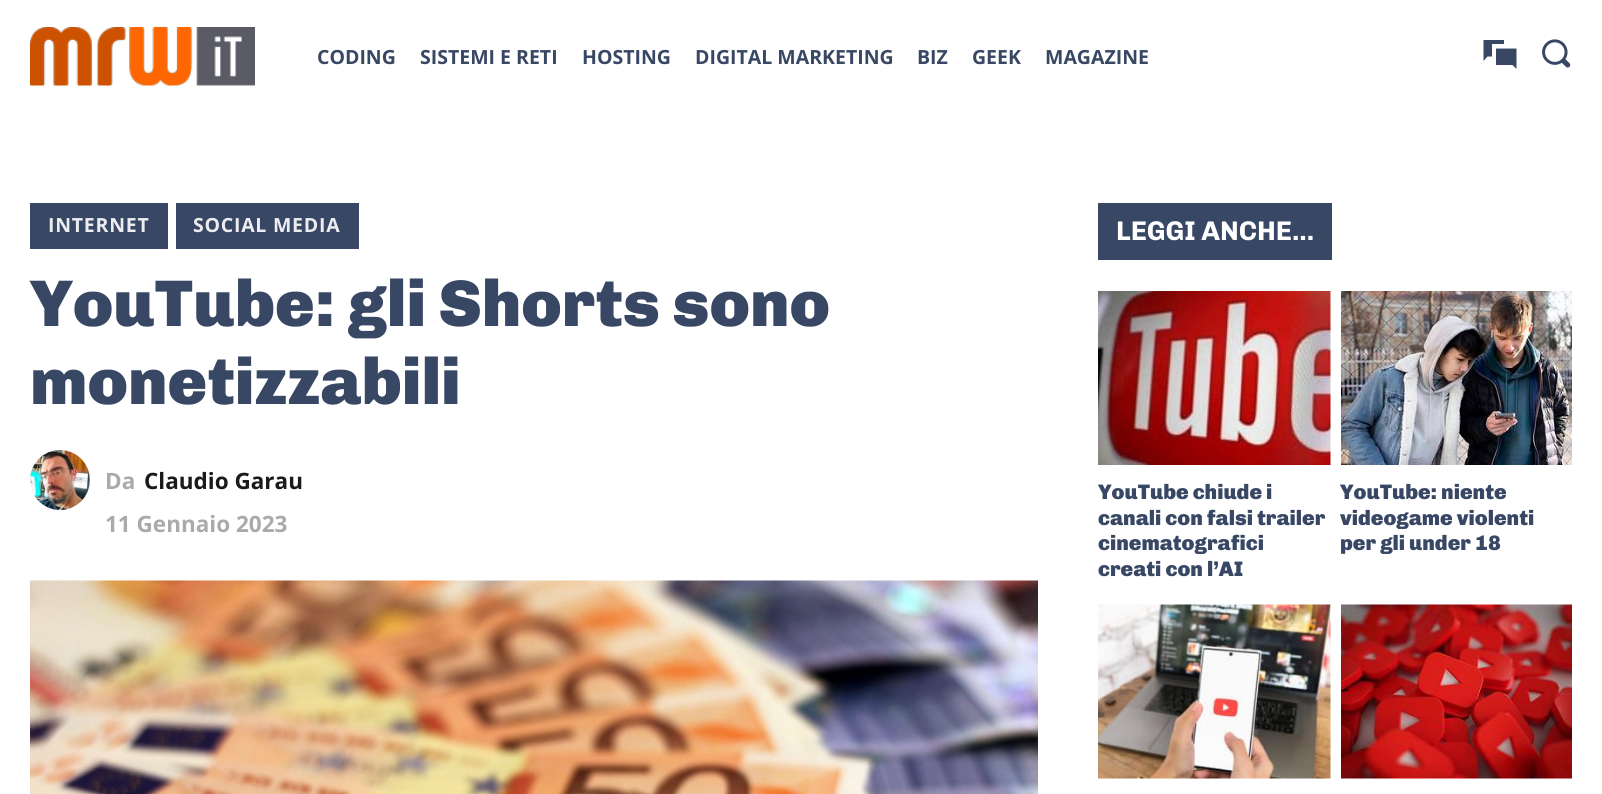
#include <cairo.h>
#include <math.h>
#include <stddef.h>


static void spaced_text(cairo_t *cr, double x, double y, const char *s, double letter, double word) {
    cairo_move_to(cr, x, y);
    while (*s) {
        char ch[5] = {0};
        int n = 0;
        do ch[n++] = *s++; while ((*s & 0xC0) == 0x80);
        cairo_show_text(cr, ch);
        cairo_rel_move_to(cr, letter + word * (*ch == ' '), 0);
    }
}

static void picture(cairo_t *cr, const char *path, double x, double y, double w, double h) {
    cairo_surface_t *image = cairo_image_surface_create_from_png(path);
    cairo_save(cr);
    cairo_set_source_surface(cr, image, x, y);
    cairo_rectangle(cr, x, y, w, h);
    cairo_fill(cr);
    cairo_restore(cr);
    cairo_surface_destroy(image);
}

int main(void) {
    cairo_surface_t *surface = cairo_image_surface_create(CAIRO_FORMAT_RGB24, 1602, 794);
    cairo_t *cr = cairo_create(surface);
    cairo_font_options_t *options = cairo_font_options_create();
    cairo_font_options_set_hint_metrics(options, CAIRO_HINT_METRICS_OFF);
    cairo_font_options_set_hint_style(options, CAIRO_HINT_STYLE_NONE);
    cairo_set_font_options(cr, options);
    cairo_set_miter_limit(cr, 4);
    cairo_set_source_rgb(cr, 1, 1, 1);
    cairo_paint(cr);
    picture(cr, "img1.png", 30, 27, 225, 59);
    cairo_select_font_face(cr, "Open Sans", CAIRO_FONT_SLANT_NORMAL, CAIRO_FONT_WEIGHT_BOLD);
    cairo_set_font_size(cr, 19.5);
    cairo_set_source_rgb(cr, 0.22, 0.278, 0.392);
    cairo_move_to(cr, 317, 64);
    cairo_show_text(cr, "CODING");
    cairo_move_to(cr, 420, 64);
    cairo_show_text(cr, "SISTEMI E RETI");
    cairo_move_to(cr, 582, 64);
    cairo_show_text(cr, "HOSTING");
    cairo_move_to(cr, 695, 64);
    cairo_show_text(cr, "DIGITAL MARKETING");
    cairo_move_to(cr, 917, 64);
    cairo_show_text(cr, "BIZ");
    cairo_move_to(cr, 972, 64);
    cairo_show_text(cr, "GEEK");
    cairo_move_to(cr, 1045, 64);
    cairo_show_text(cr, "MAGAZINE");
    cairo_new_path(cr);
    cairo_move_to(cr, 1483.5, 40);
    cairo_line_to(cr, 1504, 40);
    cairo_line_to(cr, 1504, 44);
    cairo_line_to(cr, 1492, 44);
    cairo_line_to(cr, 1492, 56.5);
    cairo_line_to(cr, 1487.5, 56.5);
    cairo_line_to(cr, 1483.5, 61);
    cairo_close_path(cr);
    cairo_move_to(cr, 1496, 48.5);
    cairo_line_to(cr, 1516.5, 48.5);
    cairo_line_to(cr, 1516.5, 69);
    cairo_line_to(cr, 1512.5, 65);
    cairo_line_to(cr, 1496, 65);
    cairo_close_path(cr);
    cairo_fill(cr);
    picture(cr, "img2.png", 1542, 39, 29, 29);
    cairo_rectangle(cr, 30, 203, 138, 46);
    cairo_fill(cr);
    cairo_set_source_rgb(cr, 0.922, 0.929, 0.941);
    spaced_text(cr, 48, 232, "INTERNET", 0.75, 0);
    cairo_set_source_rgb(cr, 0.22, 0.278, 0.392);
    cairo_rectangle(cr, 176, 203, 183, 46);
    cairo_fill(cr);
    cairo_set_source_rgb(cr, 0.922, 0.929, 0.941);
    spaced_text(cr, 193, 232, "SOCIAL MEDIA", 0.75, 0);
    cairo_select_font_face(cr, "Chivo Black", CAIRO_FONT_SLANT_NORMAL, CAIRO_FONT_WEIGHT_NORMAL);
    cairo_set_font_size(cr, 66);
    cairo_set_source_rgb(cr, 0.22, 0.278, 0.392);
    cairo_move_to(cr, 30, 326);
    cairo_show_text(cr, "YouTube: gli Shorts sono");
    cairo_move_to(cr, 30, 404);
    cairo_show_text(cr, "monetizzabili");
    picture(cr, "img3.png", 30, 450, 60, 60);
    cairo_select_font_face(cr, "Open Sans", CAIRO_FONT_SLANT_NORMAL, CAIRO_FONT_WEIGHT_BOLD);
    cairo_set_font_size(cr, 22.5);
    cairo_set_source_rgb(cr, 0.667, 0.667, 0.667);
    cairo_move_to(cr, 105, 489);
    cairo_show_text(cr, "Da");
    cairo_set_source_rgb(cr, 0.102, 0.102, 0.102);
    cairo_move_to(cr, 144, 489);
    cairo_show_text(cr, "Claudio Garau");
    cairo_set_source_rgb(cr, 0.667, 0.667, 0.667);
    cairo_move_to(cr, 105, 532);
    cairo_show_text(cr, "11 Gennaio 2023");
    picture(cr, "img4.png", 30, 580, 1008, 214);
    cairo_set_source_rgb(cr, 0.22, 0.278, 0.392);
    cairo_rectangle(cr, 1098, 203, 234, 57);
    cairo_fill(cr);
    cairo_select_font_face(cr, "Chivo", CAIRO_FONT_SLANT_NORMAL, CAIRO_FONT_WEIGHT_BOLD);
    cairo_set_font_size(cr, 27);
    cairo_set_source_rgb(cr, 1, 1, 1);
    cairo_move_to(cr, 1116, 240);
    cairo_show_text(cr, "LEGGI ANCHE...");
    picture(cr, "img5.png", 1098, 291, 233, 174);
    cairo_select_font_face(cr, "Chivo Black", CAIRO_FONT_SLANT_NORMAL, CAIRO_FONT_WEIGHT_NORMAL);
    cairo_set_font_size(cr, 21);
    cairo_set_source_rgb(cr, 0.22, 0.278, 0.392);
    cairo_move_to(cr, 1098, 499);
    cairo_show_text(cr, "YouTube chiude i");
    cairo_move_to(cr, 1098, 525);
    cairo_show_text(cr, "canali con falsi trailer");
    cairo_move_to(cr, 1098, 550);
    cairo_show_text(cr, "cinematografici");
    cairo_move_to(cr, 1098, 576);
    cairo_show_text(cr, "creati con l’AI");
    picture(cr, "img6.png", 1341, 291, 231, 174);
    cairo_move_to(cr, 1340, 499);
    cairo_show_text(cr, "YouTube: niente");
    cairo_move_to(cr, 1340, 525);
    cairo_show_text(cr, "videogame violenti");
    cairo_move_to(cr, 1340, 550);
    cairo_show_text(cr, "per gli under 18");
    picture(cr, "img7.png", 1098, 604, 233, 175);
    picture(cr, "img8.png", 1341, 604, 231, 175);
    cairo_surface_write_to_png(surface, "page.png");
    cairo_font_options_destroy(options);
    cairo_destroy(cr);
    cairo_surface_destroy(surface);
    return 0;
}
